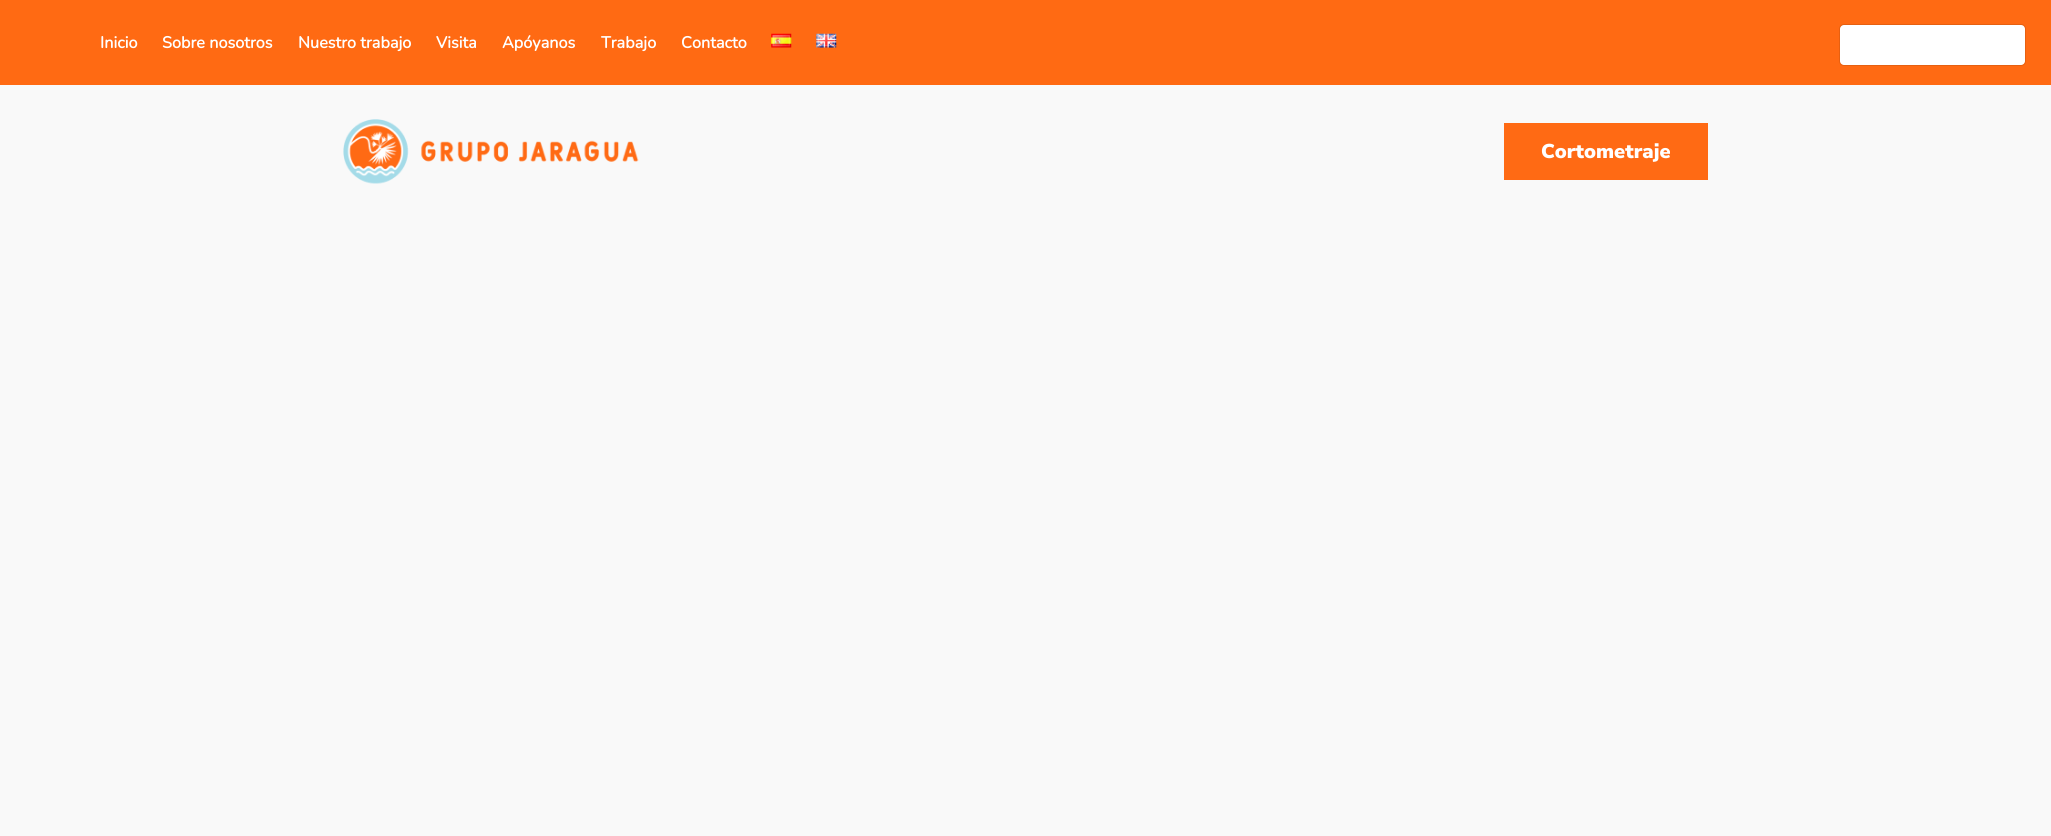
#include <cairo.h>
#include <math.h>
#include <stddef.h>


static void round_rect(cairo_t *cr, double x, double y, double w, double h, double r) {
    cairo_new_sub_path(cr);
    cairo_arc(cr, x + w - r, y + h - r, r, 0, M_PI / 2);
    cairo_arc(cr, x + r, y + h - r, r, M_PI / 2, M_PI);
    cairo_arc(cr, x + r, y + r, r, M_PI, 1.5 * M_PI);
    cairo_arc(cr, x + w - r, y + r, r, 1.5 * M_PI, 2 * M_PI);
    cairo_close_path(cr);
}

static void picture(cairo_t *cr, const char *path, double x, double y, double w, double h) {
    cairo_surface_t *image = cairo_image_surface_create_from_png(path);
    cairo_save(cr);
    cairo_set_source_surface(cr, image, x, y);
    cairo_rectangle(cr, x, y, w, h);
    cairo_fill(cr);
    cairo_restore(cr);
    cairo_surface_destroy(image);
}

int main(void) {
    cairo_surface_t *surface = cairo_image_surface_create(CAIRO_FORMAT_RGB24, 2051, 836);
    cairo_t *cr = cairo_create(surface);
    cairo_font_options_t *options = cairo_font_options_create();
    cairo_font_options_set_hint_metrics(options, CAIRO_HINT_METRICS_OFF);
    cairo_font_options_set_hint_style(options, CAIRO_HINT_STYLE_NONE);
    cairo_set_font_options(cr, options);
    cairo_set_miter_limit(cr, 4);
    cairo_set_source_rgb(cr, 0.976, 0.976, 0.976);
    cairo_paint(cr);
    cairo_set_source_rgb(cr, 1, 0.416, 0.078);
    cairo_rectangle(cr, 0, 0, 2051, 85);
    cairo_fill(cr);
    cairo_select_font_face(cr, "Nunito", CAIRO_FONT_SLANT_NORMAL, CAIRO_FONT_WEIGHT_BOLD);
    cairo_set_font_size(cr, 16.25);
    cairo_set_source_rgb(cr, 1, 1, 1);
    cairo_move_to(cr, 100, 48);
    cairo_show_text(cr, "Inicio");
    cairo_move_to(cr, 162, 48);
    cairo_show_text(cr, "Sobre nosotros");
    cairo_move_to(cr, 298, 48);
    cairo_show_text(cr, "Nuestro trabajo");
    cairo_move_to(cr, 436, 48);
    cairo_show_text(cr, "Visita");
    cairo_move_to(cr, 502, 48);
    cairo_show_text(cr, "Apóyanos");
    cairo_move_to(cr, 601, 48);
    cairo_show_text(cr, "Trabajo");
    cairo_move_to(cr, 681, 48);
    cairo_show_text(cr, "Contacto");
    picture(cr, "img1.png", 771, 33, 21, 15);
    picture(cr, "img2.png", 816, 33, 21, 15);
    round_rect(cr, 1840, 25, 185, 40, 4);
    cairo_fill(cr);
    round_rect(cr, 1839.5, 24.5, 186, 41, 4.5);
    cairo_set_source_rgba(cr, 0, 0, 0, 0.1);
    cairo_set_line_width(cr, 1);
    cairo_stroke(cr);
    picture(cr, "img3.png", 343, 119, 296, 65);
    cairo_set_source_rgb(cr, 1, 0.416, 0.082);
    cairo_rectangle(cr, 1504, 123, 204, 57);
    cairo_fill(cr);
    cairo_select_font_face(cr, "Nunito Sans Black", CAIRO_FONT_SLANT_NORMAL, CAIRO_FONT_WEIGHT_NORMAL);
    cairo_set_font_size(cr, 20);
    cairo_set_source_rgb(cr, 1, 1, 1);
    cairo_move_to(cr, 1541, 158);
    cairo_show_text(cr, "Cortometraje");
    cairo_surface_write_to_png(surface, "page.png");
    cairo_font_options_destroy(options);
    cairo_destroy(cr);
    cairo_surface_destroy(surface);
    return 0;
}
